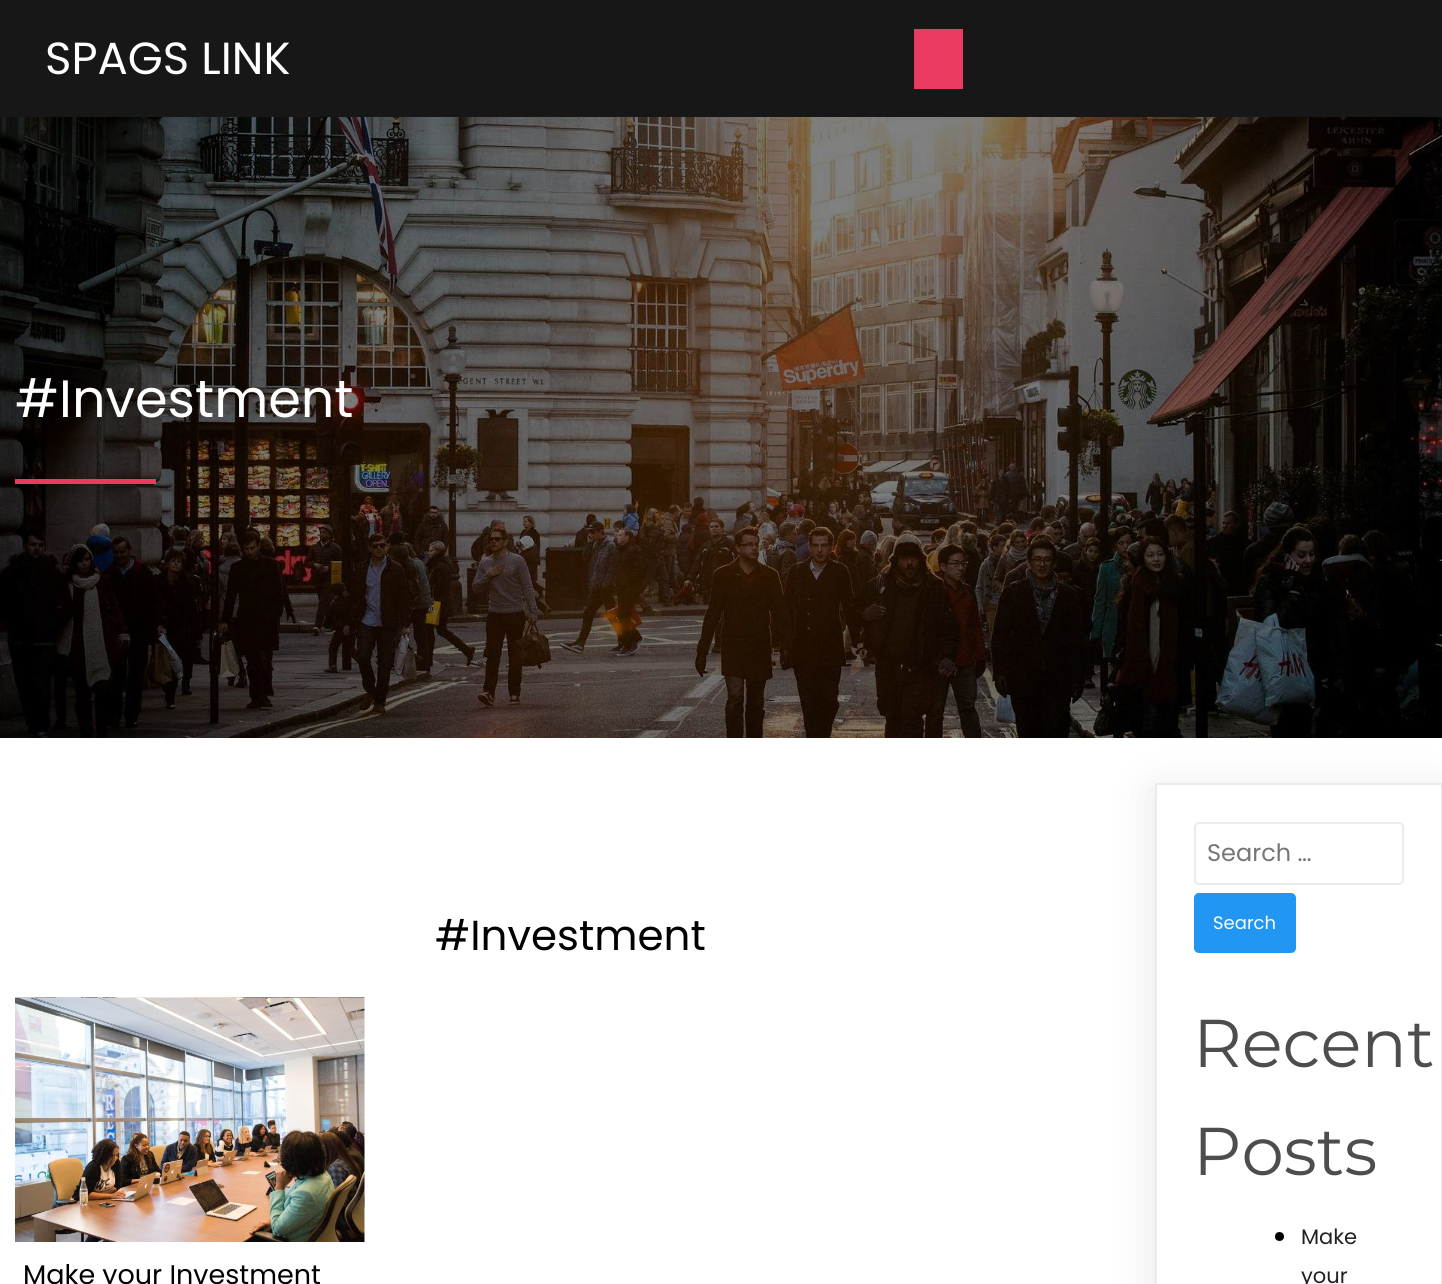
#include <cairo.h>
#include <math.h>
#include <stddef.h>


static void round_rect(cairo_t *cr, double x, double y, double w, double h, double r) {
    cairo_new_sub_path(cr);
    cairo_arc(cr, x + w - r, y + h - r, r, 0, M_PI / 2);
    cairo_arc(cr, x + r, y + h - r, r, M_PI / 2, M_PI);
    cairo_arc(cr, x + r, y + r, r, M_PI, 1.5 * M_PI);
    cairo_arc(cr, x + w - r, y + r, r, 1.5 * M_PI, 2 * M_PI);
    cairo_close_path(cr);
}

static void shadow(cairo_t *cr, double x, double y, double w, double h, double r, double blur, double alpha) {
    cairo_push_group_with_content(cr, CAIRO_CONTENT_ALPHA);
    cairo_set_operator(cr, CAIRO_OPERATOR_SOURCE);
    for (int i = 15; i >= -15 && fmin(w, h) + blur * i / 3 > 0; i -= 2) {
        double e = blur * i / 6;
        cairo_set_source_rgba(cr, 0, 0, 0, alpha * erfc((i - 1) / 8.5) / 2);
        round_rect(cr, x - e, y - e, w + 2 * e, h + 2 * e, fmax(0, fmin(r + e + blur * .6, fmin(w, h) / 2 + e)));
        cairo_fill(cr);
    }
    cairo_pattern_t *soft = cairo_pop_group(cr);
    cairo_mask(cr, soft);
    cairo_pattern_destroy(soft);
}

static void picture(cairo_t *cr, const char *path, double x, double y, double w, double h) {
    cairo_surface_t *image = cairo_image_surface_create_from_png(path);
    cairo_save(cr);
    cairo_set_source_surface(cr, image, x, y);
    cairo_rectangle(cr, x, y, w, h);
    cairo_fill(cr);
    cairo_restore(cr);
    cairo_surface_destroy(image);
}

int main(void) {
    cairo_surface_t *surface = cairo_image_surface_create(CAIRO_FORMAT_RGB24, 1442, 1284);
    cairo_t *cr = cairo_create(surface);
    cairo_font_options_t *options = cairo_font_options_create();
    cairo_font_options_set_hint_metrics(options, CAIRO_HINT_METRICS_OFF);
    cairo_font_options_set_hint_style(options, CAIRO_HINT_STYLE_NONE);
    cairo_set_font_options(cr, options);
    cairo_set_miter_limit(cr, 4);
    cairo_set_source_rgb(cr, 1, 1, 1);
    cairo_paint(cr);
    cairo_set_source_rgb(cr, 0.09, 0.09, 0.09);
    cairo_rectangle(cr, 0, 0, 1442, 117);
    cairo_fill(cr);
    cairo_select_font_face(cr, "Poppins", CAIRO_FONT_SLANT_NORMAL, CAIRO_FONT_WEIGHT_NORMAL);
    cairo_set_font_size(cr, 45);
    cairo_set_source_rgb(cr, 1, 1, 1);
    cairo_move_to(cr, 45, 74);
    cairo_show_text(cr, "SPAGS LINK");
    cairo_set_source_rgb(cr, 0.918, 0.227, 0.376);
    cairo_rectangle(cr, 914, 29, 49, 60);
    cairo_fill(cr);
    cairo_save(cr);
    cairo_set_fill_rule(cr, CAIRO_FILL_RULE_EVEN_ODD);
    cairo_new_path(cr);
    cairo_move_to(cr, 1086, 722);
    cairo_line_to(cr, 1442, 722);
    cairo_line_to(cr, 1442, 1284);
    cairo_line_to(cr, 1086, 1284);
    cairo_close_path(cr);
    cairo_move_to(cr, 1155, 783);
    cairo_line_to(cr, 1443, 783);
    cairo_line_to(cr, 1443, 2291);
    cairo_line_to(cr, 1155, 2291);
    cairo_close_path(cr);
    cairo_clip(cr);
    cairo_set_source_rgb(cr, 0, 0, 0);
    shadow(cr, 1155, 791, 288, 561, 0, 22.5, 0.1);
    cairo_restore(cr);
    picture(cr, "img1.png", 0, 117, 1442, 621);
    cairo_set_font_size(cr, 52.5);
    cairo_set_source_rgb(cr, 1, 1, 1);
    cairo_move_to(cr, 15, 417);
    cairo_show_text(cr, "#Investment");
    cairo_set_source_rgb(cr, 0.918, 0.227, 0.376);
    cairo_rectangle(cr, 15, 479, 141, 5);
    cairo_fill(cr);
    cairo_set_font_size(cr, 42);
    cairo_set_source_rgb(cr, 0, 0, 0);
    cairo_move_to(cr, 435, 950);
    cairo_show_text(cr, "#Investment");
    picture(cr, "img2.png", 15, 997, 350, 245);
    cairo_set_font_size(cr, 27);
    cairo_move_to(cr, 23, 1284);
    cairo_show_text(cr, "Make your Investment");
    cairo_rectangle(cr, 1156, 784, 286, 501);
    cairo_set_source_rgb(cr, 0.918, 0.918, 0.918);
    cairo_stroke(cr);
    round_rect(cr, 1195, 823, 208, 61, 4);
    cairo_stroke(cr);
    cairo_set_font_size(cr, 24);
    cairo_set_source_rgb(cr, 0.459, 0.459, 0.459);
    cairo_move_to(cr, 1207, 861);
    cairo_show_text(cr, "Search …");
    cairo_set_source_rgb(cr, 0.129, 0.588, 0.953);
    round_rect(cr, 1194, 893, 102, 60, 5);
    cairo_fill(cr);
    cairo_set_font_size(cr, 18);
    cairo_set_source_rgb(cr, 1, 1, 1);
    cairo_move_to(cr, 1213, 929);
    cairo_show_text(cr, "Search");
    cairo_select_font_face(cr, "Montserrat Thin", CAIRO_FONT_SLANT_NORMAL, CAIRO_FONT_WEIGHT_NORMAL);
    cairo_set_font_size(cr, 67.5);
    cairo_set_source_rgb(cr, 0.302, 0.302, 0.302);
    cairo_move_to(cr, 1193, 1067);
    cairo_show_text(cr, "Recent");
    cairo_move_to(cr, 1193, 1175);
    cairo_show_text(cr, "Posts");
    cairo_set_source_rgb(cr, 0, 0, 0);
    cairo_new_path(cr);
    cairo_arc(cr, 1279.5, 1236.5, 4.5, 0, 2 * M_PI);
    cairo_fill(cr);
    cairo_select_font_face(cr, "Poppins", CAIRO_FONT_SLANT_NORMAL, CAIRO_FONT_WEIGHT_NORMAL);
    cairo_set_font_size(cr, 21);
    cairo_set_source_rgb(cr, 0.129, 0.129, 0.129);
    cairo_move_to(cr, 1301, 1244);
    cairo_show_text(cr, "Make");
    cairo_move_to(cr, 1301, 1283);
    cairo_show_text(cr, "your");
    cairo_surface_write_to_png(surface, "page.png");
    cairo_font_options_destroy(options);
    cairo_destroy(cr);
    cairo_surface_destroy(surface);
    return 0;
}
